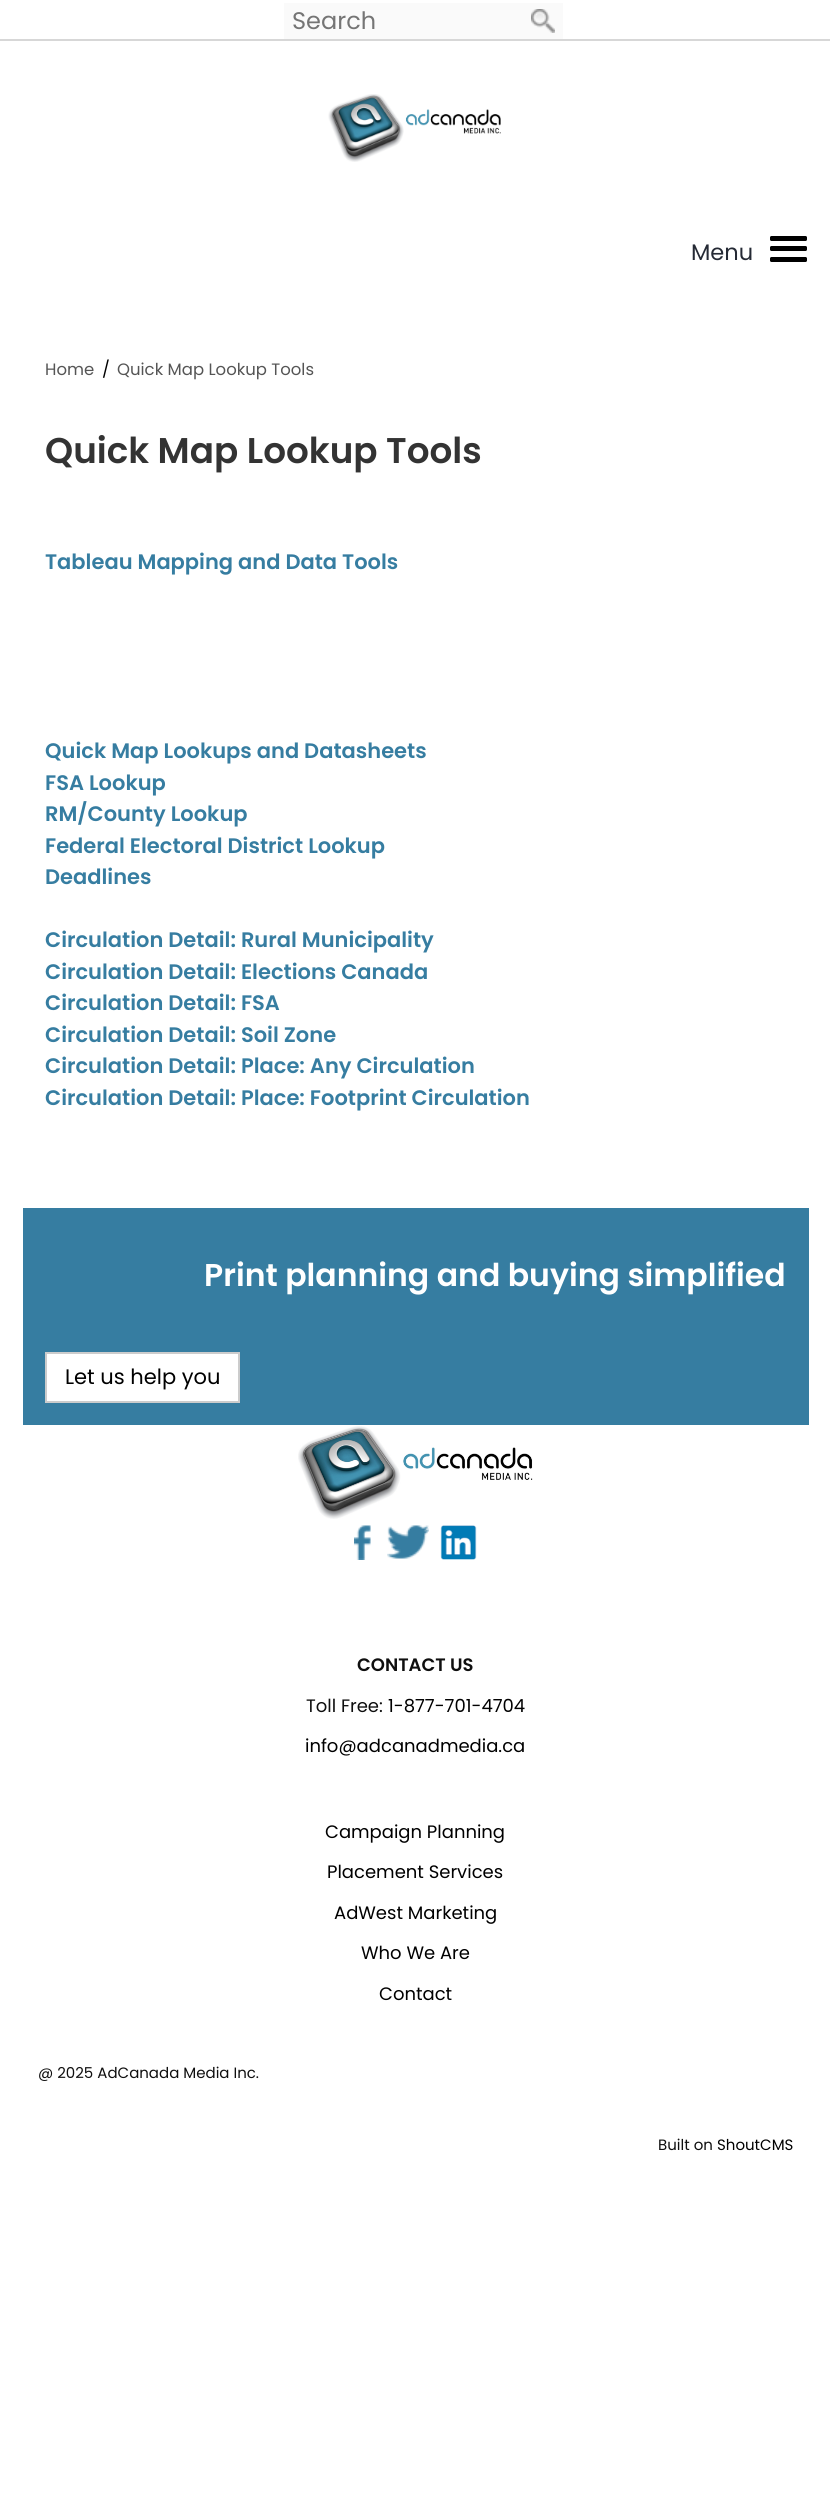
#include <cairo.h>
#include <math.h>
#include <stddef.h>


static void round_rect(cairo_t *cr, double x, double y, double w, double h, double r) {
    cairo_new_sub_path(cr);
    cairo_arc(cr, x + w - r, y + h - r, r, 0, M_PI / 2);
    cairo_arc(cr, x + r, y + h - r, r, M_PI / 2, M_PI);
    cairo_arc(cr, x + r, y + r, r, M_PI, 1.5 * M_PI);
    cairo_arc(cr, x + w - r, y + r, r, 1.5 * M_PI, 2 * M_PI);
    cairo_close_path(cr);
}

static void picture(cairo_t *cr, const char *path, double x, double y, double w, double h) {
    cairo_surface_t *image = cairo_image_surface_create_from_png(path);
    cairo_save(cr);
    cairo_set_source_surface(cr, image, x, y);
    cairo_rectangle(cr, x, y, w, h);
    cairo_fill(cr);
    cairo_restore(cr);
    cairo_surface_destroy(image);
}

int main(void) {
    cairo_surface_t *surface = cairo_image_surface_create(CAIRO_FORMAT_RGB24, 830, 2493);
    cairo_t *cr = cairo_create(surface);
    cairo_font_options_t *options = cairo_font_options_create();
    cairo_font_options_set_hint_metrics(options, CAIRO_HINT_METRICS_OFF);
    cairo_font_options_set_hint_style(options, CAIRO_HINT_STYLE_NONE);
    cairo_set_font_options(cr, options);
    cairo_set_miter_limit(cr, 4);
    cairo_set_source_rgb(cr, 1, 1, 1);
    cairo_paint(cr);
    cairo_set_source_rgb(cr, 0.843, 0.843, 0.843);
    cairo_rectangle(cr, 0, 39, 830, 2);
    cairo_fill(cr);
    cairo_set_source_rgb(cr, 0.98, 0.98, 0.98);
    cairo_rectangle(cr, 284, 3, 279, 36);
    cairo_fill(cr);
    cairo_select_font_face(cr, "Poppins", CAIRO_FONT_SLANT_NORMAL, CAIRO_FONT_WEIGHT_NORMAL);
    cairo_set_font_size(cr, 24);
    cairo_set_source_rgb(cr, 0.459, 0.459, 0.459);
    cairo_move_to(cr, 292, 29);
    cairo_show_text(cr, "Search");
    picture(cr, "img1.png", 531, 9, 24, 24);
    picture(cr, "img2.png", 328, 94, 173, 68);
    cairo_set_source_rgb(cr, 0, 0, 0);
    round_rect(cr, 770, 236, 37, 5, 1.5);
    cairo_fill(cr);
    cairo_set_font_size(cr, 22.5);
    cairo_set_source_rgb(cr, 0.145, 0.165, 0.208);
    cairo_move_to(cr, 691, 260);
    cairo_show_text(cr, "Menu");
    cairo_set_source_rgb(cr, 0, 0, 0);
    round_rect(cr, 770, 246, 37, 5, 1.5);
    cairo_fill(cr);
    round_rect(cr, 770, 257, 37, 5, 1.5);
    cairo_fill(cr);
    cairo_set_font_size(cr, 16.5);
    cairo_set_source_rgb(cr, 0.333, 0.333, 0.333);
    cairo_move_to(cr, 45, 375);
    cairo_show_text(cr, "Home");
    cairo_set_source_rgb(cr, 0, 0, 0);
    cairo_move_to(cr, 102, 375);
    cairo_show_text(cr, "/");
    cairo_set_source_rgb(cr, 0.333, 0.333, 0.333);
    cairo_move_to(cr, 117, 375);
    cairo_show_text(cr, "Quick Map Lookup Tools");
    cairo_select_font_face(cr, "Poppins SemiBold", CAIRO_FONT_SLANT_NORMAL, CAIRO_FONT_WEIGHT_NORMAL);
    cairo_set_font_size(cr, 35.75);
    cairo_set_source_rgb(cr, 0.2, 0.2, 0.2);
    cairo_move_to(cr, 45, 463);
    cairo_show_text(cr, "Quick Map Lookup Tools");
    cairo_set_font_size(cr, 21);
    cairo_set_source_rgb(cr, 0.212, 0.49, 0.631);
    cairo_move_to(cr, 45, 569);
    cairo_show_text(cr, "Tableau Mapping and Data Tools");
    cairo_move_to(cr, 45, 758);
    cairo_show_text(cr, "Quick Map Lookups and Datasheets");
    cairo_move_to(cr, 45, 790);
    cairo_show_text(cr, "FSA Lookup");
    cairo_move_to(cr, 45, 821);
    cairo_show_text(cr, "RM/County Lookup");
    cairo_move_to(cr, 45, 853);
    cairo_show_text(cr, "Federal Electoral District Lookup");
    cairo_move_to(cr, 45, 884);
    cairo_show_text(cr, "Deadlines");
    cairo_move_to(cr, 45, 947);
    cairo_show_text(cr, "Circulation Detail: Rural Municipality");
    cairo_move_to(cr, 45, 979);
    cairo_show_text(cr, "Circulation Detail: Elections Canada");
    cairo_move_to(cr, 45, 1010);
    cairo_show_text(cr, "Circulation Detail: FSA");
    cairo_move_to(cr, 45, 1042);
    cairo_show_text(cr, "Circulation Detail: Soil Zone");
    cairo_move_to(cr, 45, 1073);
    cairo_show_text(cr, "Circulation Detail: Place: Any Circulation");
    cairo_move_to(cr, 45, 1105);
    cairo_show_text(cr, "Circulation Detail: Place: Footprint Circulation");
    cairo_rectangle(cr, 23, 1208, 786, 217);
    cairo_fill(cr);
    cairo_set_font_size(cr, 31.5);
    cairo_set_source_rgb(cr, 1, 1, 1);
    cairo_move_to(cr, 204, 1286);
    cairo_show_text(cr, "Print planning and buying simplified");
    cairo_rectangle(cr, 46, 1353, 193, 49);
    cairo_fill_preserve(cr);
    cairo_set_source_rgb(cr, 0.8, 0.8, 0.8);
    cairo_stroke(cr);
    cairo_select_font_face(cr, "Poppins", CAIRO_FONT_SLANT_NORMAL, CAIRO_FONT_WEIGHT_NORMAL);
    cairo_set_font_size(cr, 21);
    cairo_set_source_rgb(cr, 0, 0, 0);
    cairo_move_to(cr, 65, 1384);
    cairo_show_text(cr, "Let us help you");
    picture(cr, "img3.png", 298, 1426, 235, 93);
    picture(cr, "img4.png", 354, 1525, 17, 35);
    picture(cr, "img5.png", 387, 1525, 42, 34);
    picture(cr, "img6.png", 440, 1525, 37, 35);
    cairo_select_font_face(cr, "Poppins SemiBold", CAIRO_FONT_SLANT_NORMAL, CAIRO_FONT_WEIGHT_NORMAL);
    cairo_set_font_size(cr, 18);
    cairo_set_source_rgb(cr, 0.059, 0.059, 0.059);
    cairo_move_to(cr, 357, 1671);
    cairo_show_text(cr, "CONTACT US");
    cairo_select_font_face(cr, "Poppins", CAIRO_FONT_SLANT_NORMAL, CAIRO_FONT_WEIGHT_NORMAL);
    cairo_move_to(cr, 306, 1712);
    cairo_show_text(cr, "Toll Free:");
    cairo_set_source_rgb(cr, 0, 0, 0);
    cairo_move_to(cr, 388, 1712);
    cairo_show_text(cr, "1-877-701-4704");
    cairo_move_to(cr, 305, 1752);
    cairo_show_text(cr, "info@adcanadmedia.ca");
    cairo_move_to(cr, 325, 1838);
    cairo_show_text(cr, "Campaign Planning");
    cairo_move_to(cr, 327, 1878);
    cairo_show_text(cr, "Placement Services");
    cairo_move_to(cr, 334, 1919);
    cairo_show_text(cr, "AdWest Marketing");
    cairo_move_to(cr, 361, 1959);
    cairo_show_text(cr, "Who We Are");
    cairo_move_to(cr, 379, 2000);
    cairo_show_text(cr, "Contact");
    cairo_set_font_size(cr, 15);
    cairo_set_source_rgb(cr, 0.059, 0.059, 0.059);
    cairo_move_to(cr, 38, 2078);
    cairo_show_text(cr, "@ 2025 AdCanada Media Inc.");
    cairo_move_to(cr, 658, 2150);
    cairo_show_text(cr, "Built on");
    cairo_set_source_rgb(cr, 0, 0, 0);
    cairo_move_to(cr, 717, 2150);
    cairo_show_text(cr, "ShoutCMS");
    cairo_surface_write_to_png(surface, "page.png");
    cairo_font_options_destroy(options);
    cairo_destroy(cr);
    cairo_surface_destroy(surface);
    return 0;
}
